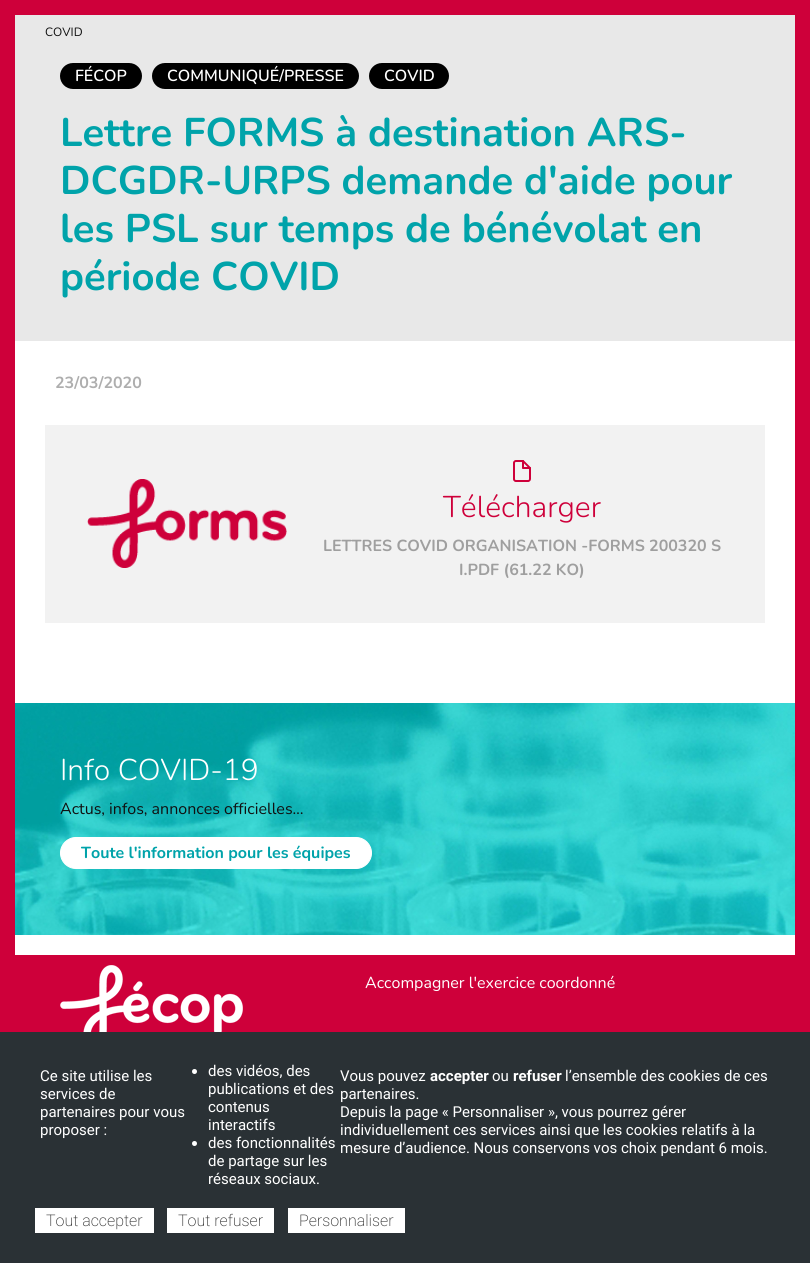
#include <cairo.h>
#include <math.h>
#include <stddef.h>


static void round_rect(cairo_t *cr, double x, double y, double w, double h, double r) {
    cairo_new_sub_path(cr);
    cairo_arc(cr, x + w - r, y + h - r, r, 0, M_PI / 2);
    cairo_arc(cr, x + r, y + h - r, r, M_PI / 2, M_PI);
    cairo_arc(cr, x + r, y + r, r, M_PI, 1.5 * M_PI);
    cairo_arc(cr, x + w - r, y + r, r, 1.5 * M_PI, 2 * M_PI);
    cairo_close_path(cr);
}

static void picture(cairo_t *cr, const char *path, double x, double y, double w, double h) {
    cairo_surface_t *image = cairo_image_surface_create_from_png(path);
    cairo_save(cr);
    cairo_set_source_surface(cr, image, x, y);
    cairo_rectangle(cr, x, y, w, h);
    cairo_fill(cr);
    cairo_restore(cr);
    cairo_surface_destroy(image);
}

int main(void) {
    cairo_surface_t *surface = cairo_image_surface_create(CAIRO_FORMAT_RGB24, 810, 1263);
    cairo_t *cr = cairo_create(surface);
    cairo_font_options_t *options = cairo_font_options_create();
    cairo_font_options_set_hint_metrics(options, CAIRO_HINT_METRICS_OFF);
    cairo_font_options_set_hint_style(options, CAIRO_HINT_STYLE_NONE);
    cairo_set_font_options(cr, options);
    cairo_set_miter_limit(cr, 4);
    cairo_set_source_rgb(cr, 1, 1, 1);
    cairo_paint(cr);
    cairo_rectangle(cr, 7.5, -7.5, 795, 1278);
    cairo_set_source_rgb(cr, 0.808, 0, 0.227);
    cairo_set_line_width(cr, 15);
    cairo_stroke(cr);
    cairo_rectangle(cr, 15, 0, 780, 15);
    cairo_fill(cr);
    cairo_set_source_rgb(cr, 0.91, 0.91, 0.91);
    cairo_rectangle(cr, 15, 15, 780, 326);
    cairo_fill(cr);
    cairo_select_font_face(cr, "Nunito", CAIRO_FONT_SLANT_NORMAL, CAIRO_FONT_WEIGHT_NORMAL);
    cairo_set_font_size(cr, 12);
    cairo_set_source_rgb(cr, 0.063, 0.063, 0.063);
    cairo_move_to(cr, 45, 36);
    cairo_show_text(cr, "COVID");
    cairo_set_source_rgb(cr, 0, 0, 0);
    round_rect(cr, 60, 63, 82, 26, 13);
    cairo_fill(cr);
    cairo_select_font_face(cr, "Nunito SemiBold", CAIRO_FONT_SLANT_NORMAL, CAIRO_FONT_WEIGHT_NORMAL);
    cairo_set_font_size(cr, 16);
    cairo_set_source_rgb(cr, 1, 1, 1);
    cairo_move_to(cr, 75, 81);
    cairo_show_text(cr, "FÉCOP");
    cairo_set_source_rgb(cr, 0, 0, 0);
    round_rect(cr, 152, 63, 207, 26, 13);
    cairo_fill(cr);
    cairo_set_source_rgb(cr, 1, 1, 1);
    cairo_move_to(cr, 167, 81);
    cairo_show_text(cr, "COMMUNIQUÉ/PRESSE");
    cairo_set_source_rgb(cr, 0, 0, 0);
    round_rect(cr, 369, 63, 80, 26, 13);
    cairo_fill(cr);
    cairo_set_source_rgb(cr, 1, 1, 1);
    cairo_move_to(cr, 384, 81);
    cairo_show_text(cr, "COVID");
    cairo_select_font_face(cr, "Nunito", CAIRO_FONT_SLANT_NORMAL, CAIRO_FONT_WEIGHT_BOLD);
    cairo_set_font_size(cr, 40);
    cairo_set_source_rgb(cr, 0, 0.639, 0.667);
    cairo_move_to(cr, 60, 146);
    cairo_show_text(cr, "Lettre FORMS à destination ARS-");
    cairo_move_to(cr, 60, 194);
    cairo_show_text(cr, "DCGDR-URPS demande d'aide pour");
    cairo_move_to(cr, 60, 242);
    cairo_show_text(cr, "les PSL sur temps de bénévolat en");
    cairo_move_to(cr, 60, 290);
    cairo_show_text(cr, "période COVID");
    cairo_set_font_size(cr, 16);
    cairo_set_source_rgb(cr, 0.682, 0.682, 0.682);
    cairo_move_to(cr, 55, 388);
    cairo_show_text(cr, "23/03/2020");
    cairo_set_source_rgb(cr, 0.949, 0.949, 0.949);
    cairo_rectangle(cr, 45, 425, 720, 198);
    cairo_fill(cr);
    picture(cr, "img1.png", 87, 479, 200, 89);
    picture(cr, "img2.png", 513, 460, 18, 22);
    cairo_select_font_face(cr, "Nunito Light", CAIRO_FONT_SLANT_NORMAL, CAIRO_FONT_WEIGHT_NORMAL);
    cairo_set_font_size(cr, 30);
    cairo_set_source_rgb(cr, 0.808, 0, 0.227);
    cairo_move_to(cr, 443, 517);
    cairo_show_text(cr, "Télécharger");
    cairo_select_font_face(cr, "Nunito", CAIRO_FONT_SLANT_NORMAL, CAIRO_FONT_WEIGHT_BOLD);
    cairo_set_font_size(cr, 16);
    cairo_set_source_rgb(cr, 0.624, 0.624, 0.624);
    cairo_move_to(cr, 323, 551);
    cairo_show_text(cr, "LETTRES COVID ORGANISATION -FORMS 200320 S");
    cairo_move_to(cr, 459, 575);
    cairo_show_text(cr, "I.PDF (61.22 KO)");
    picture(cr, "img3.png", 15, 703, 780, 232);
    cairo_select_font_face(cr, "Nunito Light", CAIRO_FONT_SLANT_NORMAL, CAIRO_FONT_WEIGHT_NORMAL);
    cairo_set_font_size(cr, 30);
    cairo_set_source_rgb(cr, 1, 1, 1);
    cairo_move_to(cr, 60, 780);
    cairo_show_text(cr, "Info COVID-19");
    cairo_select_font_face(cr, "Nunito", CAIRO_FONT_SLANT_NORMAL, CAIRO_FONT_WEIGHT_NORMAL);
    cairo_set_font_size(cr, 16);
    cairo_set_source_rgb(cr, 0.063, 0.063, 0.063);
    cairo_move_to(cr, 60, 814);
    cairo_show_text(cr, "Actus, infos, annonces officielles…");
    cairo_set_source_rgb(cr, 1, 1, 1);
    round_rect(cr, 60.5, 837.5, 311, 31, 15.5);
    cairo_fill_preserve(cr);
    cairo_set_line_width(cr, 1);
    cairo_stroke(cr);
    cairo_select_font_face(cr, "Nunito", CAIRO_FONT_SLANT_NORMAL, CAIRO_FONT_WEIGHT_BOLD);
    cairo_set_source_rgb(cr, 0, 0.639, 0.667);
    cairo_move_to(cr, 81, 858);
    cairo_show_text(cr, "Toute l'information pour les équipes");
    cairo_set_source_rgb(cr, 0.808, 0, 0.227);
    cairo_rectangle(cr, 15, 955, 780, 77);
    cairo_fill(cr);
    picture(cr, "img4.png", 60, 965, 183, 67);
    cairo_select_font_face(cr, "Nunito", CAIRO_FONT_SLANT_NORMAL, CAIRO_FONT_WEIGHT_NORMAL);
    cairo_set_source_rgb(cr, 1, 1, 1);
    cairo_move_to(cr, 365, 988);
    cairo_show_text(cr, "Accompagner l'exercice coordonné");
    cairo_set_source_rgb(cr, 0.165, 0.192, 0.208);
    cairo_rectangle(cr, 0, 1032, 810, 231);
    cairo_fill(cr);
    cairo_select_font_face(cr, "Roboto", CAIRO_FONT_SLANT_NORMAL, CAIRO_FONT_WEIGHT_NORMAL);
    cairo_set_font_size(cr, 15);
    cairo_set_source_rgb(cr, 1, 1, 1);
    cairo_move_to(cr, 40, 1081);
    cairo_show_text(cr, "Ce site utilise les");
    cairo_move_to(cr, 40, 1099);
    cairo_show_text(cr, "services de");
    cairo_move_to(cr, 40, 1117);
    cairo_show_text(cr, "partenaires pour vous");
    cairo_move_to(cr, 40, 1135);
    cairo_show_text(cr, "proposer :");
    cairo_new_path(cr);
    cairo_arc(cr, 194.5, 1071.5, 2.5, 0, 2 * M_PI);
    cairo_fill(cr);
    cairo_move_to(cr, 208, 1076);
    cairo_show_text(cr, "des vidéos, des");
    cairo_move_to(cr, 208, 1094);
    cairo_show_text(cr, "publications et des");
    cairo_move_to(cr, 208, 1112);
    cairo_show_text(cr, "contenus");
    cairo_move_to(cr, 208, 1130);
    cairo_show_text(cr, "interactifs");
    cairo_new_path(cr);
    cairo_arc(cr, 194.5, 1143.5, 2.5, 0, 2 * M_PI);
    cairo_fill(cr);
    cairo_move_to(cr, 208, 1148);
    cairo_show_text(cr, "des fonctionnalités");
    cairo_move_to(cr, 208, 1166);
    cairo_show_text(cr, "de partage sur les");
    cairo_move_to(cr, 208, 1184);
    cairo_show_text(cr, "réseaux sociaux.");
    cairo_move_to(cr, 340, 1081);
    cairo_show_text(cr, "Vous pouvez");
    cairo_select_font_face(cr, "Roboto", CAIRO_FONT_SLANT_NORMAL, CAIRO_FONT_WEIGHT_BOLD);
    cairo_move_to(cr, 430, 1081);
    cairo_show_text(cr, "accepter");
    cairo_select_font_face(cr, "Roboto", CAIRO_FONT_SLANT_NORMAL, CAIRO_FONT_WEIGHT_NORMAL);
    cairo_move_to(cr, 492, 1081);
    cairo_show_text(cr, "ou");
    cairo_select_font_face(cr, "Roboto", CAIRO_FONT_SLANT_NORMAL, CAIRO_FONT_WEIGHT_BOLD);
    cairo_move_to(cr, 513, 1081);
    cairo_show_text(cr, "refuser");
    cairo_select_font_face(cr, "Roboto", CAIRO_FONT_SLANT_NORMAL, CAIRO_FONT_WEIGHT_NORMAL);
    cairo_move_to(cr, 565, 1081);
    cairo_show_text(cr, "l’ensemble des cookies de ces");
    cairo_move_to(cr, 340, 1099);
    cairo_show_text(cr, "partenaires.");
    cairo_move_to(cr, 340, 1117);
    cairo_show_text(cr, "Depuis la page « Personnaliser », vous pourrez gérer");
    cairo_move_to(cr, 340, 1135);
    cairo_show_text(cr, "individuellement ces services ainsi que les cookies relatifs à la");
    cairo_move_to(cr, 340, 1153);
    cairo_show_text(cr, "mesure d’audience. Nous conservons vos choix pendant 6 mois.");
    cairo_rectangle(cr, 35, 1208, 119, 25);
    cairo_fill(cr);
    cairo_select_font_face(cr, "Roboto ExtraLight", CAIRO_FONT_SLANT_NORMAL, CAIRO_FONT_WEIGHT_NORMAL);
    cairo_set_font_size(cr, 16);
    cairo_set_source_rgb(cr, 0.2, 0.2, 0.2);
    cairo_move_to(cr, 46, 1226);
    cairo_show_text(cr, "Tout accepter");
    cairo_set_source_rgb(cr, 1, 1, 1);
    cairo_rectangle(cr, 167, 1208, 107, 25);
    cairo_fill(cr);
    cairo_set_source_rgb(cr, 0.2, 0.2, 0.2);
    cairo_move_to(cr, 178, 1226);
    cairo_show_text(cr, "Tout refuser");
    cairo_set_source_rgb(cr, 1, 1, 1);
    cairo_rectangle(cr, 288, 1208, 117, 25);
    cairo_fill(cr);
    cairo_set_source_rgb(cr, 0.2, 0.2, 0.2);
    cairo_move_to(cr, 299, 1226);
    cairo_show_text(cr, "Personnaliser");
    cairo_surface_write_to_png(surface, "page.png");
    cairo_font_options_destroy(options);
    cairo_destroy(cr);
    cairo_surface_destroy(surface);
    return 0;
}
